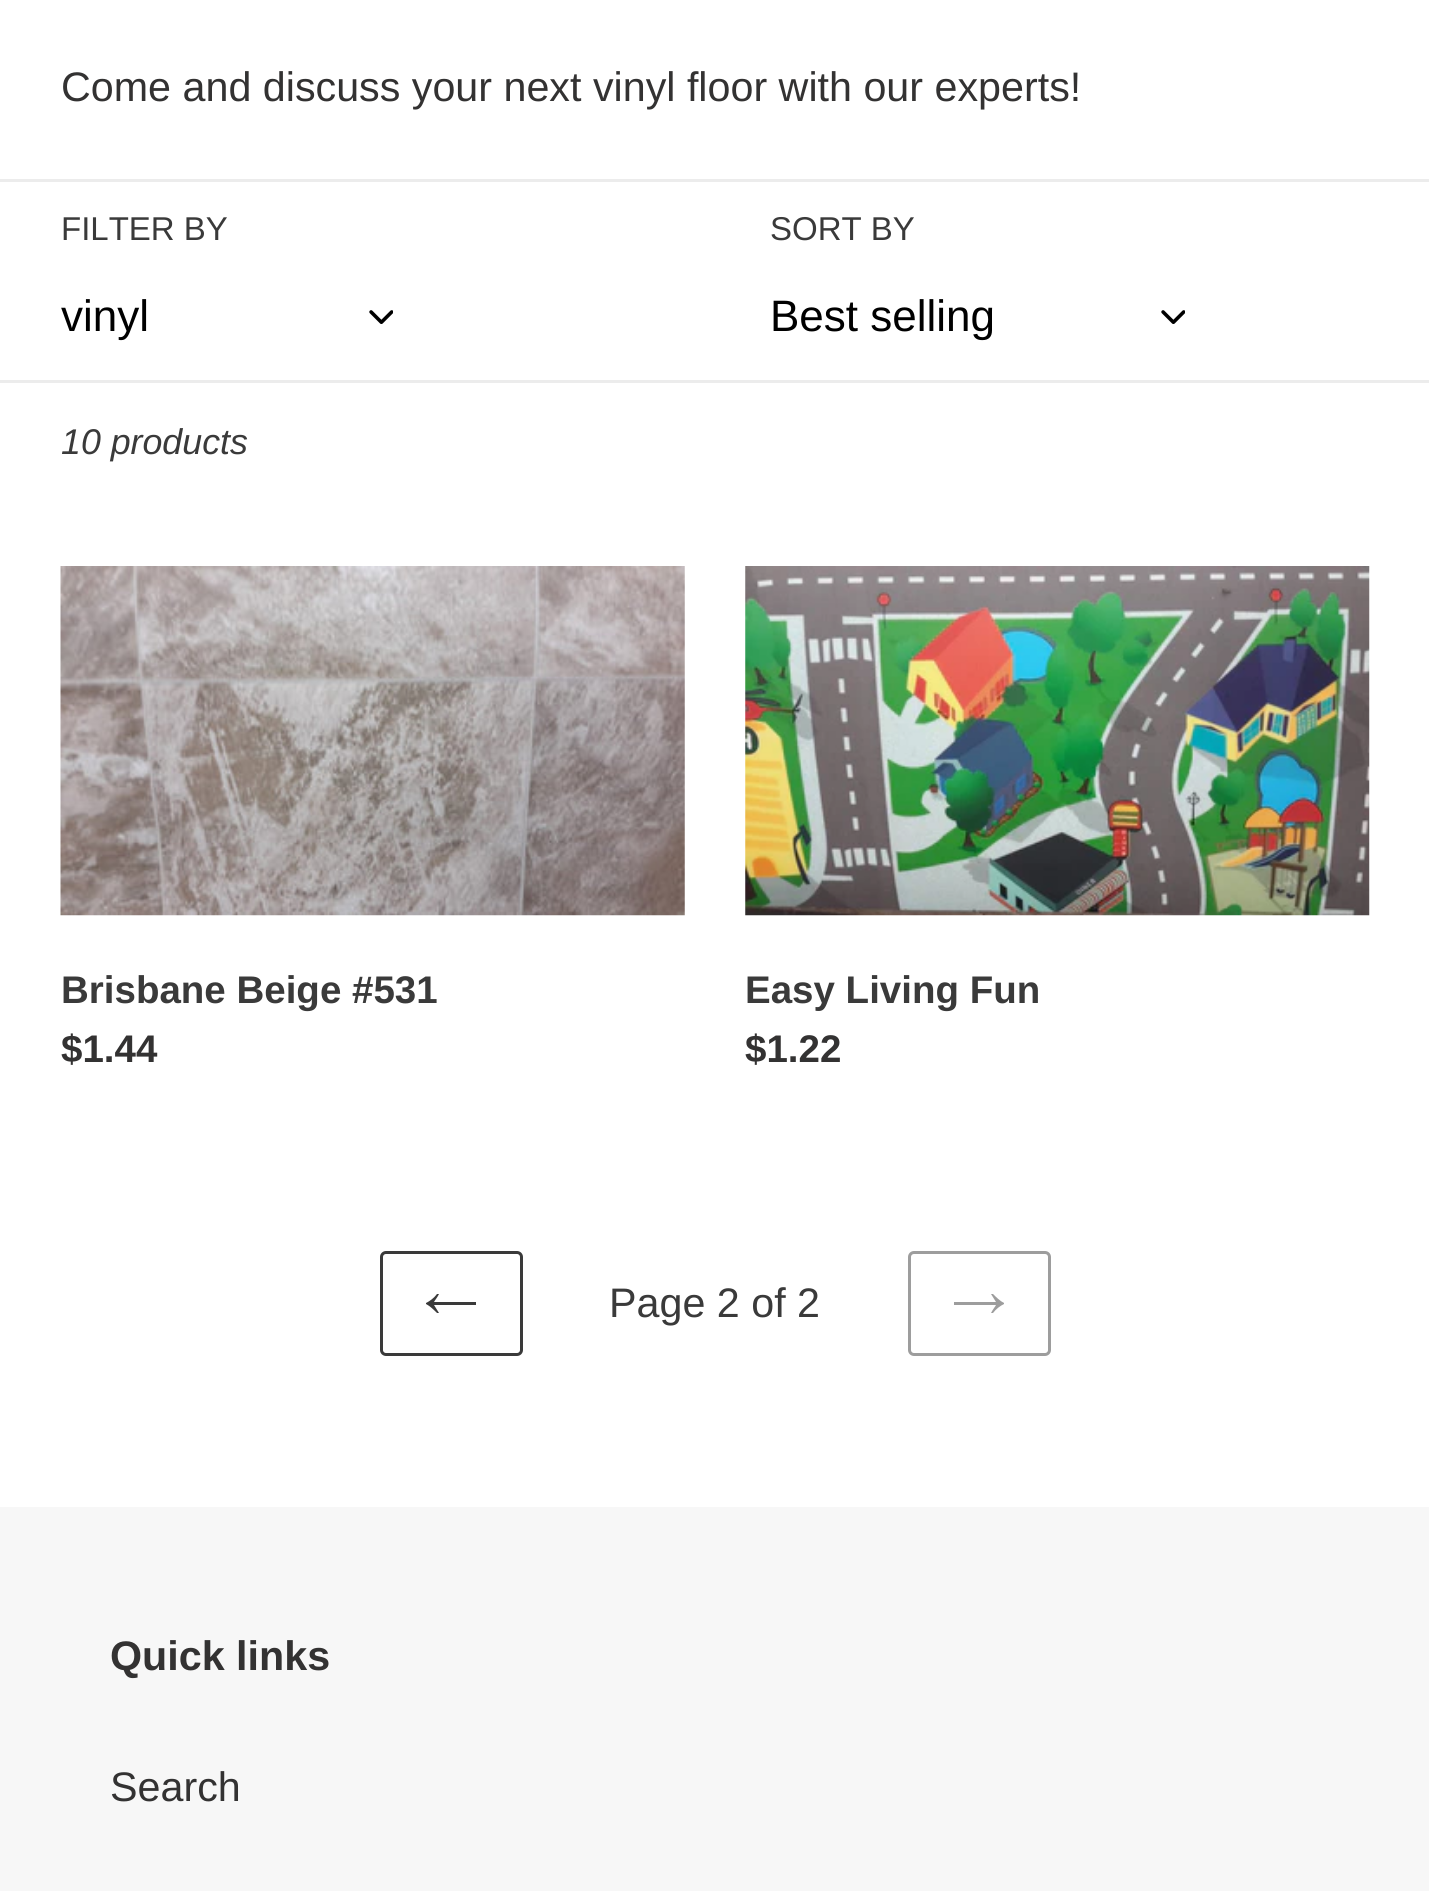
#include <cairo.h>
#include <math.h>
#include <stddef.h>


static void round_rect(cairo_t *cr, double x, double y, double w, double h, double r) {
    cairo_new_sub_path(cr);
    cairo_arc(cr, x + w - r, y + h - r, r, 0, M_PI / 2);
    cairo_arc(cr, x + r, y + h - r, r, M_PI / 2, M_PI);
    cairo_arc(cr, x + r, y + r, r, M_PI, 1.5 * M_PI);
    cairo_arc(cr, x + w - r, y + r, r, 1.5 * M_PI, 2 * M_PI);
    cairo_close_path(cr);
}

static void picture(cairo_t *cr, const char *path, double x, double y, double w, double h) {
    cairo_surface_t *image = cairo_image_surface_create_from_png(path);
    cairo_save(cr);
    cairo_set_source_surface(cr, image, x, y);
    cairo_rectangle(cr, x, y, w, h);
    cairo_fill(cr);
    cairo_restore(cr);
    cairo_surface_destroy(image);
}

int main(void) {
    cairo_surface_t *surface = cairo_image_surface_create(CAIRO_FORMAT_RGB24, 1429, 1891);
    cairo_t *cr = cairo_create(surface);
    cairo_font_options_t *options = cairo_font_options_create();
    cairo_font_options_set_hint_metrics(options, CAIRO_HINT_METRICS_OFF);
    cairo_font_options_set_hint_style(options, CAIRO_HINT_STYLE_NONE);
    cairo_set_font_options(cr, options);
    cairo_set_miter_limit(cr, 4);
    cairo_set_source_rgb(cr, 1, 1, 1);
    cairo_paint(cr);
    cairo_select_font_face(cr, "Liberation Sans", CAIRO_FONT_SLANT_NORMAL, CAIRO_FONT_WEIGHT_NORMAL);
    cairo_set_font_size(cr, 41.25);
    cairo_set_source_rgb(cr, 0.2, 0.196, 0.196);
    cairo_move_to(cr, 61, 101);
    cairo_show_text(cr, "Come and discuss your next vinyl floor with our experts!");
    cairo_set_source_rgb(cr, 0.922, 0.922, 0.922);
    cairo_rectangle(cr, 0, 179, 1429, 3);
    cairo_fill(cr);
    cairo_set_font_size(cr, 33);
    cairo_set_source_rgb(cr, 0.227, 0.227, 0.227);
    cairo_move_to(cr, 61, 240);
    cairo_show_text(cr, "FILTER BY");
    cairo_set_font_size(cr, 44);
    cairo_set_source_rgb(cr, 0, 0, 0);
    cairo_move_to(cr, 61, 331);
    cairo_show_text(cr, "vinyl");
    picture(cr, "img1.png", 369, 310, 24, 14);
    cairo_set_font_size(cr, 33);
    cairo_set_source_rgb(cr, 0.227, 0.227, 0.227);
    cairo_move_to(cr, 770, 240);
    cairo_show_text(cr, "SORT BY");
    cairo_set_font_size(cr, 44);
    cairo_set_source_rgb(cr, 0, 0, 0);
    cairo_move_to(cr, 770, 331);
    cairo_show_text(cr, "Best selling");
    picture(cr, "img1.png", 1161, 310, 24, 14);
    cairo_set_source_rgb(cr, 0.922, 0.922, 0.922);
    cairo_rectangle(cr, 0, 380, 1429, 3);
    cairo_fill(cr);
    cairo_select_font_face(cr, "Liberation Sans", CAIRO_FONT_SLANT_ITALIC, CAIRO_FONT_WEIGHT_NORMAL);
    cairo_set_font_size(cr, 35.75);
    cairo_set_source_rgb(cr, 0.227, 0.227, 0.227);
    cairo_move_to(cr, 61, 454);
    cairo_show_text(cr, "10 products");
    picture(cr, "img2.png", 60, 566, 625, 350);
    cairo_select_font_face(cr, "Liberation Sans", CAIRO_FONT_SLANT_NORMAL, CAIRO_FONT_WEIGHT_BOLD);
    cairo_set_font_size(cr, 38.5);
    cairo_move_to(cr, 61, 1003);
    cairo_show_text(cr, "Brisbane Beige #531");
    cairo_set_source_rgb(cr, 0.2, 0.196, 0.196);
    cairo_move_to(cr, 61, 1062);
    cairo_show_text(cr, "$1.44");
    picture(cr, "img3.png", 745, 566, 625, 350);
    cairo_set_source_rgb(cr, 0.227, 0.227, 0.227);
    cairo_move_to(cr, 745, 1003);
    cairo_show_text(cr, "Easy Living Fun");
    cairo_set_source_rgb(cr, 0.2, 0.196, 0.196);
    cairo_move_to(cr, 745, 1062);
    cairo_show_text(cr, "$1.22");
    round_rect(cr, 381.5, 1252.5, 140, 102, 4.5);
    cairo_set_source_rgb(cr, 0.227, 0.227, 0.227);
    cairo_set_line_width(cr, 3);
    cairo_stroke(cr);
    cairo_set_fill_rule(cr, CAIRO_FILL_RULE_EVEN_ODD);
    cairo_new_path(cr);
    cairo_move_to(cr, 437, 1313);
    cairo_curve_to(cr, 434, 1310, 430, 1306, 426, 1304);
    cairo_line_to(cr, 426, 1303);
    cairo_curve_to(cr, 430, 1301, 434, 1298, 437, 1294);
    cairo_line_to(cr, 439, 1294);
    cairo_curve_to(cr, 437, 1298, 435, 1300, 434, 1302);
    cairo_line_to(cr, 476, 1302);
    cairo_line_to(cr, 476, 1305);
    cairo_line_to(cr, 434, 1305);
    cairo_line_to(cr, 439, 1313);
    cairo_close_path(cr);
    cairo_fill(cr);
    cairo_select_font_face(cr, "Liberation Sans", CAIRO_FONT_SLANT_NORMAL, CAIRO_FONT_WEIGHT_NORMAL);
    cairo_set_font_size(cr, 41.25);
    cairo_move_to(cr, 609, 1317);
    cairo_show_text(cr, "Page 2 of 2");
    round_rect(cr, 909.5, 1252.5, 140, 102, 4.5);
    cairo_set_source_rgb(cr, 0.616, 0.616, 0.616);
    cairo_stroke(cr);
    cairo_new_path(cr);
    cairo_move_to(cr, 993, 1294);
    cairo_curve_to(cr, 996, 1297, 1000, 1301, 1004, 1303);
    cairo_line_to(cr, 1004, 1304);
    cairo_curve_to(cr, 1000, 1306, 996, 1309, 993, 1313);
    cairo_line_to(cr, 991, 1313);
    cairo_curve_to(cr, 993, 1309, 995, 1307, 996, 1305);
    cairo_line_to(cr, 954, 1305);
    cairo_line_to(cr, 954, 1302);
    cairo_line_to(cr, 996, 1302);
    cairo_line_to(cr, 991, 1294);
    cairo_close_path(cr);
    cairo_fill(cr);
    cairo_set_source_rgb(cr, 0.965, 0.965, 0.965);
    cairo_rectangle(cr, 0, 1507, 1429, 384);
    cairo_fill(cr);
    cairo_select_font_face(cr, "Liberation Sans", CAIRO_FONT_SLANT_NORMAL, CAIRO_FONT_WEIGHT_BOLD);
    cairo_set_source_rgb(cr, 0.2, 0.196, 0.196);
    cairo_move_to(cr, 110, 1670);
    cairo_show_text(cr, "Quick links");
    cairo_select_font_face(cr, "Liberation Sans", CAIRO_FONT_SLANT_NORMAL, CAIRO_FONT_WEIGHT_NORMAL);
    cairo_move_to(cr, 110, 1801);
    cairo_show_text(cr, "Search");
    cairo_surface_write_to_png(surface, "page.png");
    cairo_font_options_destroy(options);
    cairo_destroy(cr);
    cairo_surface_destroy(surface);
    return 0;
}
